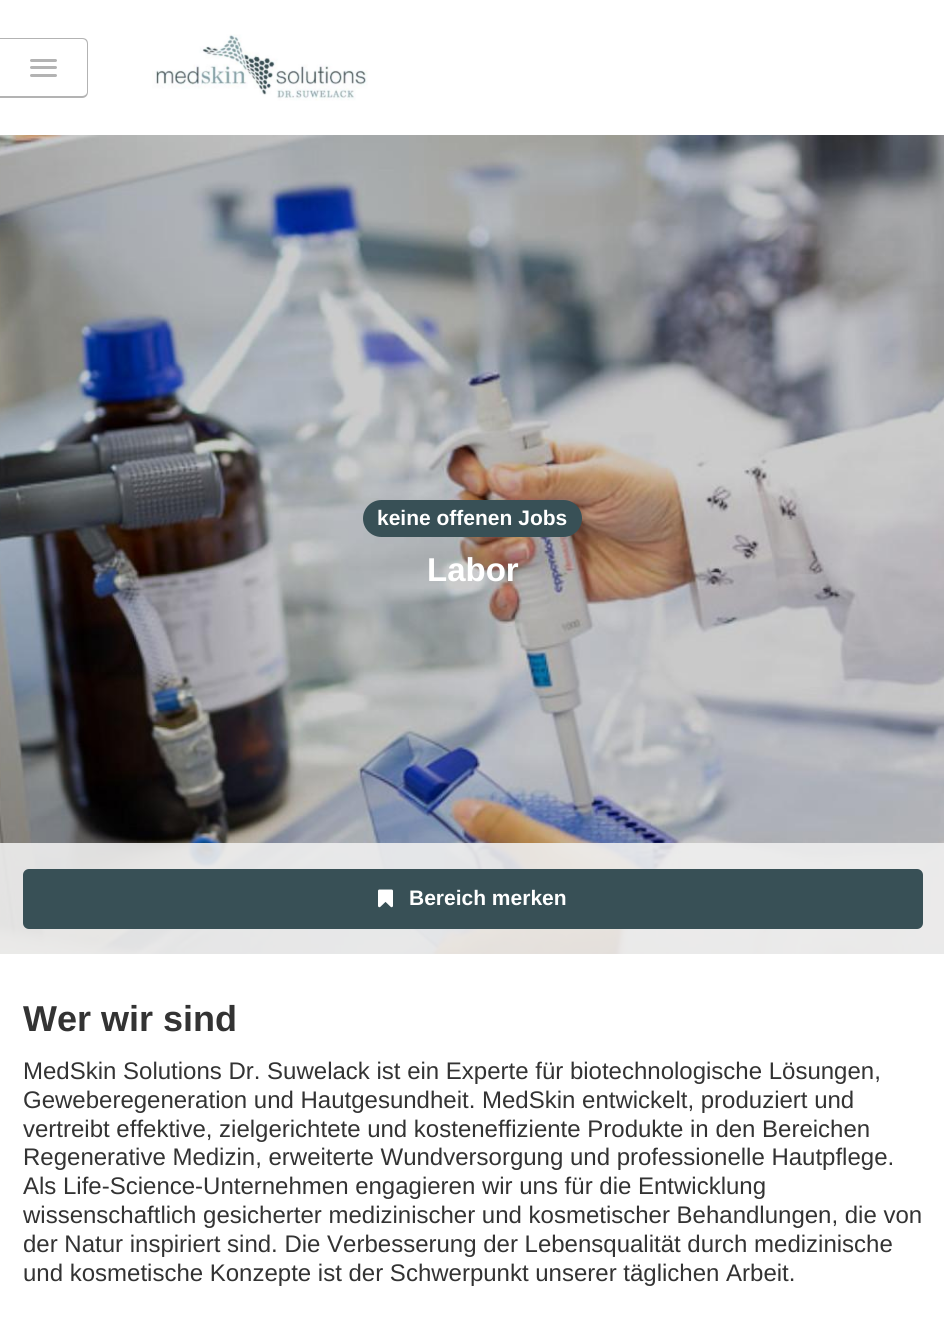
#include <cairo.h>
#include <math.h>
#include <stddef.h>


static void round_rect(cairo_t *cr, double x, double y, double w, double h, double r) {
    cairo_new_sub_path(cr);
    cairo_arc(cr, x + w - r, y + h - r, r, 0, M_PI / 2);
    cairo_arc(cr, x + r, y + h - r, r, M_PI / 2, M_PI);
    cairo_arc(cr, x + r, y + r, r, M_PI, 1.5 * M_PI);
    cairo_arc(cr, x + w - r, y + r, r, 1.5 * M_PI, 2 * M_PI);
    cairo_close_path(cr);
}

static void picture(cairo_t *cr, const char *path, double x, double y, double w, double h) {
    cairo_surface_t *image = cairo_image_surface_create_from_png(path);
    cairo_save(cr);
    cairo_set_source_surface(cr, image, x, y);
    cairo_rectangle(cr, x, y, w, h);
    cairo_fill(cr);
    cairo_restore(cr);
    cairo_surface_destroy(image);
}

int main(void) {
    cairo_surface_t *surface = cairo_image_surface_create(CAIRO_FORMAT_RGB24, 944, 1327);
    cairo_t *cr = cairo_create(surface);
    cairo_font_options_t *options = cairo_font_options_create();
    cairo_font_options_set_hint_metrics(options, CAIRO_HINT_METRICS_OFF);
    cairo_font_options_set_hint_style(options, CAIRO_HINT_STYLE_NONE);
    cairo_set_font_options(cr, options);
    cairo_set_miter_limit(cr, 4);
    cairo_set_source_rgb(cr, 1, 1, 1);
    cairo_paint(cr);
    cairo_set_source_rgb(cr, 0.702, 0.702, 0.702);
    cairo_set_fill_rule(cr, CAIRO_FILL_RULE_EVEN_ODD);
    cairo_new_path(cr);
    cairo_move_to(cr, 0, 38);
    cairo_line_to(cr, 82, 38);
    cairo_curve_to(cr, 86, 38, 88, 40, 88, 44);
    cairo_line_to(cr, 88, 92);
    cairo_curve_to(cr, 88, 95, 86, 98, 82, 98);
    cairo_line_to(cr, 0, 98);
    cairo_close_path(cr);
    cairo_move_to(cr, 0, 39);
    cairo_line_to(cr, 82, 39);
    cairo_curve_to(cr, 85, 39, 87, 41, 87, 44);
    cairo_line_to(cr, 87, 92);
    cairo_curve_to(cr, 87, 94, 85, 96, 82, 96);
    cairo_line_to(cr, 0, 96);
    cairo_close_path(cr);
    cairo_fill(cr);
    round_rect(cr, 30, 59, 27, 3, 1.5);
    cairo_fill(cr);
    round_rect(cr, 30, 66, 27, 3, 1.5);
    cairo_fill(cr);
    round_rect(cr, 30, 74, 27, 3, 1.5);
    cairo_fill(cr);
    picture(cr, "img1.png", 152, 34, 216, 67);
    picture(cr, "img2.png", 0, 135, 944, 819);
    cairo_set_source_rgb(cr, 0.22, 0.314, 0.337);
    round_rect(cr, 363, 500, 219, 37, 18.5);
    cairo_fill(cr);
    cairo_select_font_face(cr, "Liberation Sans", CAIRO_FONT_SLANT_NORMAL, CAIRO_FONT_WEIGHT_BOLD);
    cairo_set_font_size(cr, 21);
    cairo_set_source_rgb(cr, 1, 1, 1);
    cairo_move_to(cr, 377, 525);
    cairo_show_text(cr, "keine offenen Jobs");
    cairo_set_font_size(cr, 33);
    cairo_move_to(cr, 427, 581);
    cairo_show_text(cr, "Labor");
    cairo_set_source_rgba(cr, 0.937, 0.937, 0.937, 0.9);
    cairo_rectangle(cr, 0, 843, 944, 111);
    cairo_fill(cr);
    cairo_set_source_rgb(cr, 0.22, 0.314, 0.337);
    round_rect(cr, 23, 869, 900, 60, 6);
    cairo_fill(cr);
    picture(cr, "img3.png", 378, 889, 15, 19);
    cairo_set_font_size(cr, 21);
    cairo_set_source_rgb(cr, 1, 1, 1);
    cairo_move_to(cr, 409, 905);
    cairo_show_text(cr, "Bereich merken");
    cairo_set_font_size(cr, 36);
    cairo_set_source_rgb(cr, 0.2, 0.2, 0.2);
    cairo_move_to(cr, 23, 1031);
    cairo_show_text(cr, "Wer wir sind");
    cairo_select_font_face(cr, "Liberation Sans", CAIRO_FONT_SLANT_NORMAL, CAIRO_FONT_WEIGHT_NORMAL);
    cairo_set_font_size(cr, 24);
    cairo_move_to(cr, 23, 1079);
    cairo_show_text(cr, "MedSkin Solutions Dr. Suwelack ist ein Experte für biotechnologische Lösungen,");
    cairo_move_to(cr, 23, 1108);
    cairo_show_text(cr, "Geweberegeneration und Hautgesundheit. MedSkin entwickelt, produziert und");
    cairo_move_to(cr, 23, 1137);
    cairo_show_text(cr, "vertreibt effektive, zielgerichtete und kosteneffiziente Produkte in den Bereichen");
    cairo_move_to(cr, 23, 1165);
    cairo_show_text(cr, "Regenerative Medizin, erweiterte Wundversorgung und professionelle Hautpflege.");
    cairo_move_to(cr, 23, 1194);
    cairo_show_text(cr, "Als Life-Science-Unternehmen engagieren wir uns für die Entwicklung");
    cairo_move_to(cr, 23, 1223);
    cairo_show_text(cr, "wissenschaftlich gesicherter medizinischer und kosmetischer Behandlungen, die von");
    cairo_move_to(cr, 23, 1252);
    cairo_show_text(cr, "der Natur inspiriert sind. Die Verbesserung der Lebensqualität durch medizinische");
    cairo_move_to(cr, 23, 1281);
    cairo_show_text(cr, "und kosmetische Konzepte ist der Schwerpunkt unserer täglichen Arbeit.");
    cairo_surface_write_to_png(surface, "page.png");
    cairo_font_options_destroy(options);
    cairo_destroy(cr);
    cairo_surface_destroy(surface);
    return 0;
}
